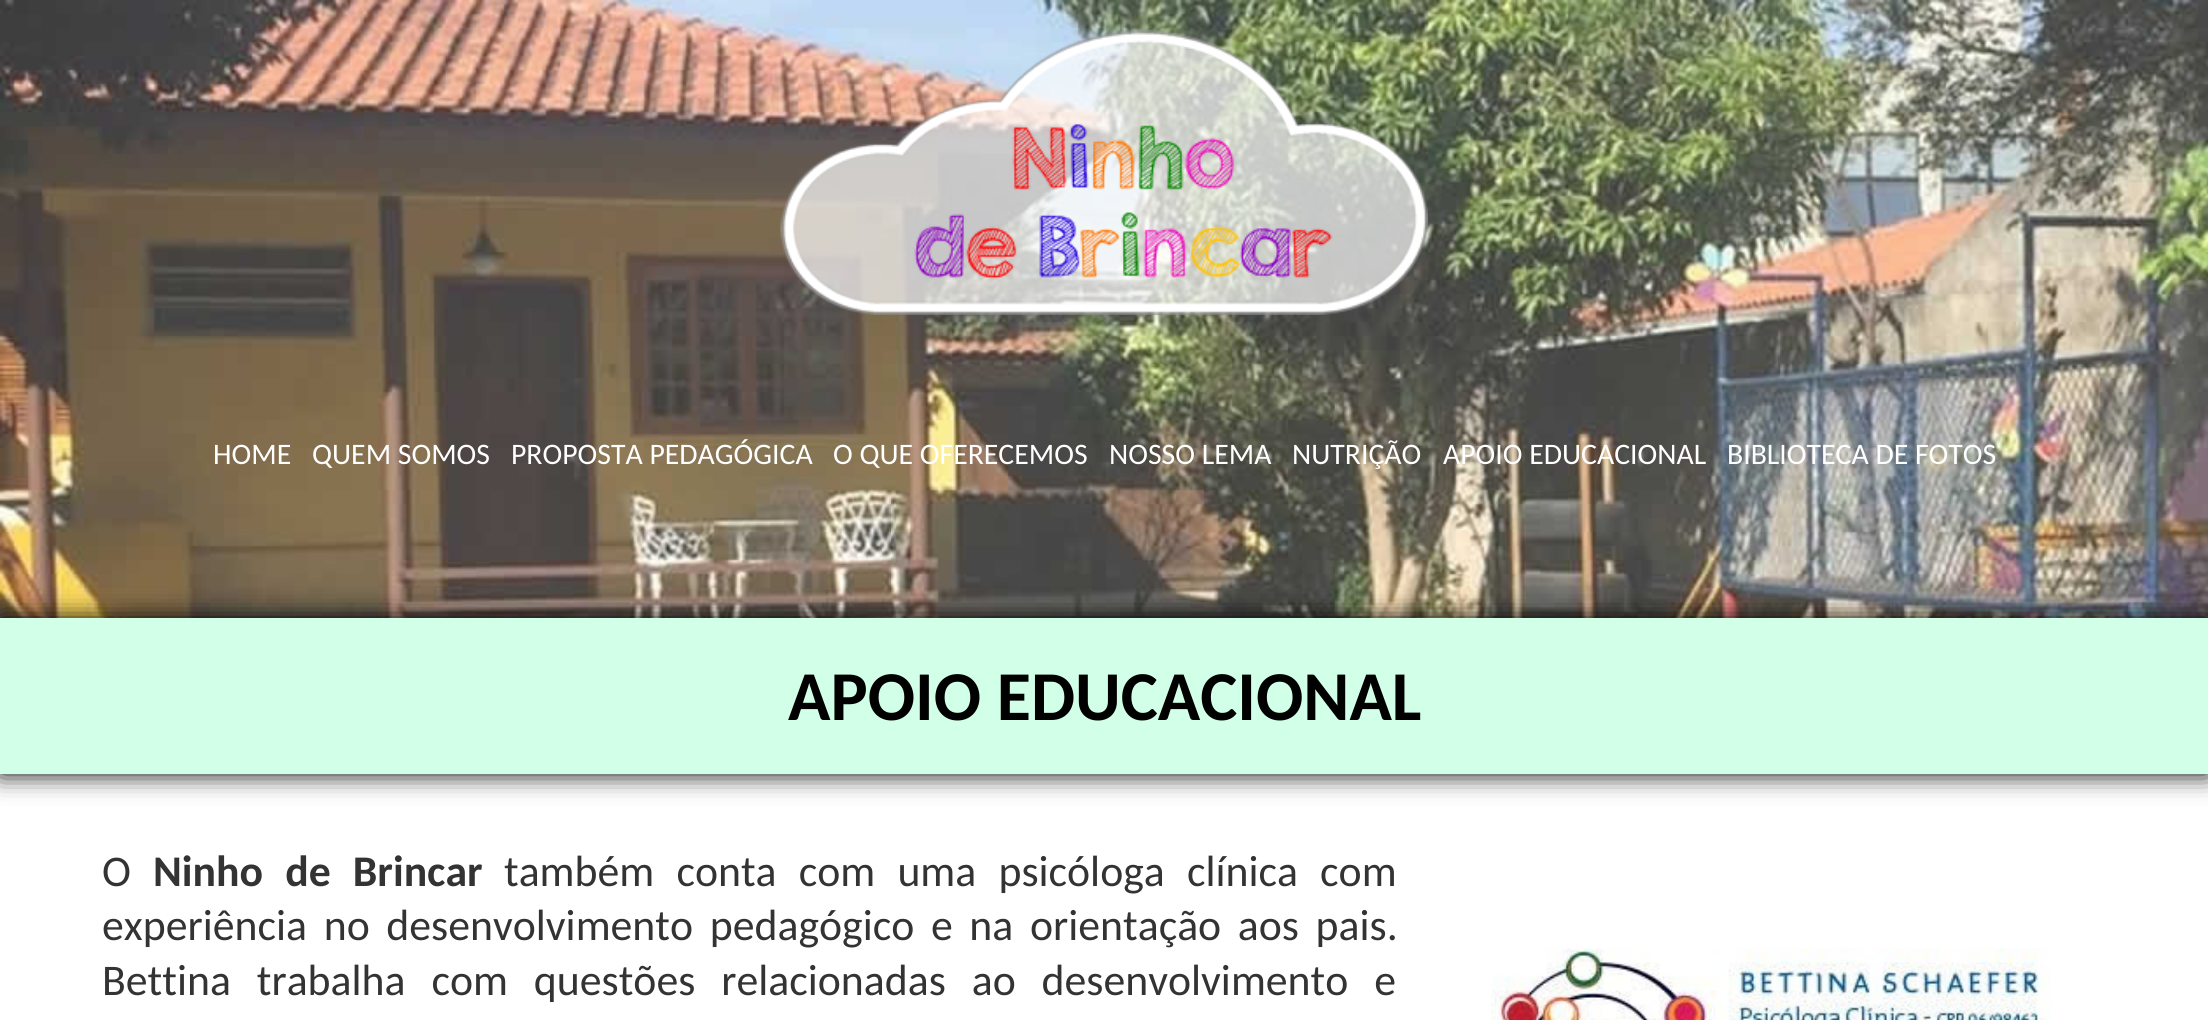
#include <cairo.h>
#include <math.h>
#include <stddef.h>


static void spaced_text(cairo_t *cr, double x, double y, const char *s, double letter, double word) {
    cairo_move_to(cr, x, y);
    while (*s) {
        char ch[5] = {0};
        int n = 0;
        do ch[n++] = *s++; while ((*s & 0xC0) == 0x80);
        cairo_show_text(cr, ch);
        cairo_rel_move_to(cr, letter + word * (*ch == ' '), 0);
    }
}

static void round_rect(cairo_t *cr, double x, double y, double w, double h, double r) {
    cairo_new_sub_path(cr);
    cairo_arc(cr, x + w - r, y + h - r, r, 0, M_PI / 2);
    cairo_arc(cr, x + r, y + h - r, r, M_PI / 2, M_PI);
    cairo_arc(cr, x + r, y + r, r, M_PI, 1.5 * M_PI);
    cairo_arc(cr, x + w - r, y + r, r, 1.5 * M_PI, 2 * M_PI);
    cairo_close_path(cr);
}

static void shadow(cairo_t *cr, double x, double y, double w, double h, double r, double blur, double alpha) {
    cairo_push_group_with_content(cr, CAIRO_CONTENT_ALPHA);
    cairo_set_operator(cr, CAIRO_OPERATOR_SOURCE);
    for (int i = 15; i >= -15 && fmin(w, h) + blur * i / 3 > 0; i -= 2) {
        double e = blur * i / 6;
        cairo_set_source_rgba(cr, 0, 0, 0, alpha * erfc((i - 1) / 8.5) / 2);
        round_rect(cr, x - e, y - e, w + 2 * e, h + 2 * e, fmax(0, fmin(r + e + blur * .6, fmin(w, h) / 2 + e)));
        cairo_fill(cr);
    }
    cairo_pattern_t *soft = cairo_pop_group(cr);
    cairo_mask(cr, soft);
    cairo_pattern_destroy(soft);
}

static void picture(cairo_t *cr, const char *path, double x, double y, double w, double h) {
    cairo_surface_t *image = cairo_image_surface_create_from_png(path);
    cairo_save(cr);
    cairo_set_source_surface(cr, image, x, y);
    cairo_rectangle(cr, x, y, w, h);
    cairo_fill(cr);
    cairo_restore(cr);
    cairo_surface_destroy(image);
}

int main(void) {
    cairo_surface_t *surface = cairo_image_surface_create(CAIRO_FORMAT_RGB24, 2208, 1020);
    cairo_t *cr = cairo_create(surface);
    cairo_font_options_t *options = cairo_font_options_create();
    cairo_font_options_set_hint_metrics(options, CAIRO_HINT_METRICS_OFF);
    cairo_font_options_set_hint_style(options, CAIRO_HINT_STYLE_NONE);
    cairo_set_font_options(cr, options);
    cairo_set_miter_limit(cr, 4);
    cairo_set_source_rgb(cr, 1, 1, 1);
    cairo_paint(cr);
    picture(cr, "img2.png", 0, 0, 2208, 618);
    picture(cr, "img1.png", 780, 29, 648, 286);
    cairo_select_font_face(cr, "Carlito", CAIRO_FONT_SLANT_NORMAL, CAIRO_FONT_WEIGHT_NORMAL);
    cairo_set_font_size(cr, 29.75);
    cairo_set_source_rgb(cr, 1, 1, 1);
    cairo_move_to(cr, 213, 464);
    cairo_show_text(cr, "HOME");
    cairo_move_to(cr, 312, 464);
    cairo_show_text(cr, "QUEM SOMOS");
    cairo_move_to(cr, 511, 464);
    cairo_show_text(cr, "PROPOSTA PEDAGÓGICA");
    cairo_move_to(cr, 833, 464);
    cairo_show_text(cr, "O QUE OFERECEMOS");
    cairo_move_to(cr, 1109, 464);
    cairo_show_text(cr, "NOSSO LEMA");
    cairo_move_to(cr, 1292, 464);
    cairo_show_text(cr, "NUTRIÇÃO");
    cairo_move_to(cr, 1443, 464);
    cairo_show_text(cr, "APOIO EDUCACIONAL");
    cairo_move_to(cr, 1727, 464);
    cairo_show_text(cr, "BIBLIOTECA DE FOTOS");
    cairo_set_source_rgb(cr, 0, 0, 0);
    shadow(cr, 0, 618, 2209, 156, 0, 13, 1);
    cairo_set_source_rgb(cr, 0.824, 1, 0.91);
    cairo_rectangle(cr, 0, 618, 2208, 156);
    cairo_fill(cr);
    cairo_select_font_face(cr, "Carlito", CAIRO_FONT_SLANT_NORMAL, CAIRO_FONT_WEIGHT_BOLD);
    cairo_set_font_size(cr, 70);
    cairo_set_source_rgb(cr, 0, 0, 0);
    cairo_move_to(cr, 788, 720);
    cairo_show_text(cr, "APOIO EDUCACIONAL");
    cairo_select_font_face(cr, "Carlito", CAIRO_FONT_SLANT_NORMAL, CAIRO_FONT_WEIGHT_NORMAL);
    cairo_set_font_size(cr, 43.75);
    cairo_set_source_rgb(cr, 0.2, 0.2, 0.2);
    cairo_move_to(cr, 102, 886);
    cairo_show_text(cr, "O");
    cairo_select_font_face(cr, "Carlito", CAIRO_FONT_SLANT_NORMAL, CAIRO_FONT_WEIGHT_BOLD);
    spaced_text(cr, 153, 886, "Ninho de Brincar", 0, 12.25);
    cairo_select_font_face(cr, "Carlito", CAIRO_FONT_SLANT_NORMAL, CAIRO_FONT_WEIGHT_NORMAL);
    spaced_text(cr, 504, 886, "também conta com uma psicóloga clínica com", 0, 12.25);
    spaced_text(cr, 102, 940, "experiência no desenvolvimento pedagógico e na orientação aos pais.", 0, 6.75);
    spaced_text(cr, 102, 995, "Bettina trabalha com questões relacionadas ao desenvolvimento e", 0, 16);
    picture(cr, "img3.png", 1491, 948, 560, 72);
    cairo_surface_write_to_png(surface, "page.png");
    cairo_font_options_destroy(options);
    cairo_destroy(cr);
    cairo_surface_destroy(surface);
    return 0;
}
